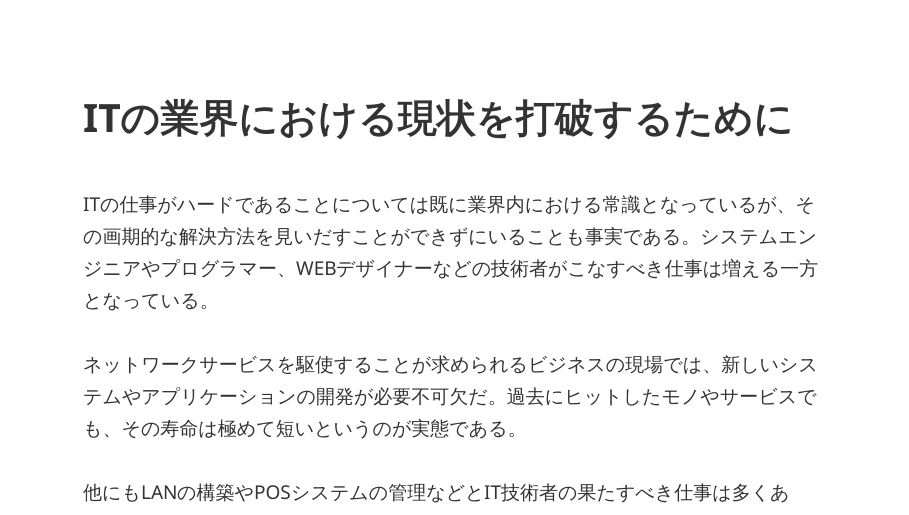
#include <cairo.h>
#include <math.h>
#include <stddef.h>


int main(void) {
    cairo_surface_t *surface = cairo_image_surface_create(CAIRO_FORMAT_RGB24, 909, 515);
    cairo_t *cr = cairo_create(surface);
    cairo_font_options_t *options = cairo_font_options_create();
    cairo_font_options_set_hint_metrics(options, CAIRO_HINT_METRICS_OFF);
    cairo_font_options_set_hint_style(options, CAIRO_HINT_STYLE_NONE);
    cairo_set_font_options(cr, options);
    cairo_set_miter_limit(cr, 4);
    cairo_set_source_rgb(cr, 1, 1, 1);
    cairo_paint(cr);
    cairo_select_font_face(cr, "Noto Sans", CAIRO_FONT_SLANT_NORMAL, CAIRO_FONT_WEIGHT_BOLD);
    cairo_set_font_size(cr, 39);
    cairo_set_source_rgb(cr, 0.2, 0.2, 0.2);
    cairo_move_to(cr, 83, 132);
    cairo_show_text(cr, "IT");
    cairo_select_font_face(cr, "WenQuanYi Zen Hei", CAIRO_FONT_SLANT_NORMAL, CAIRO_FONT_WEIGHT_BOLD);
    cairo_move_to(cr, 120, 132);
    cairo_show_text(cr, "の業界における現状を打破するために");
    cairo_select_font_face(cr, "Noto Sans", CAIRO_FONT_SLANT_NORMAL, CAIRO_FONT_WEIGHT_NORMAL);
    cairo_set_font_size(cr, 19);
    cairo_move_to(cr, 83, 211);
    cairo_show_text(cr, "IT");
    cairo_select_font_face(cr, "WenQuanYi Zen Hei Medium", CAIRO_FONT_SLANT_NORMAL, CAIRO_FONT_WEIGHT_NORMAL);
    cairo_move_to(cr, 100, 211);
    cairo_show_text(cr, "の仕事がハードであることについては既に業界内における常識となっているが、そ");
    cairo_move_to(cr, 83, 243);
    cairo_show_text(cr, "の画期的な解決方法を見いだすことができずにいることも事実である。システムエン");
    cairo_move_to(cr, 83, 275);
    cairo_show_text(cr, "ジニアやプログラマー、");
    cairo_select_font_face(cr, "Noto Sans", CAIRO_FONT_SLANT_NORMAL, CAIRO_FONT_WEIGHT_NORMAL);
    cairo_move_to(cr, 296, 275);
    cairo_show_text(cr, "WEB");
    cairo_select_font_face(cr, "WenQuanYi Zen Hei Medium", CAIRO_FONT_SLANT_NORMAL, CAIRO_FONT_WEIGHT_NORMAL);
    cairo_move_to(cr, 336, 275);
    cairo_show_text(cr, "デザイナーなどの技術者がこなすべき仕事は増える一方");
    cairo_move_to(cr, 83, 307);
    cairo_show_text(cr, "となっている。");
    cairo_move_to(cr, 83, 371);
    cairo_show_text(cr, "ネットワークサービスを駆使することが求められるビジネスの現場では、新しいシス");
    cairo_move_to(cr, 83, 403);
    cairo_show_text(cr, "テムやアプリケーションの開発が必要不可欠だ。過去にヒットしたモノやサービスで");
    cairo_move_to(cr, 83, 435);
    cairo_show_text(cr, "も、その寿命は極めて短いというのが実態である。");
    cairo_move_to(cr, 83, 499);
    cairo_show_text(cr, "他にも");
    cairo_select_font_face(cr, "Noto Sans", CAIRO_FONT_SLANT_NORMAL, CAIRO_FONT_WEIGHT_NORMAL);
    cairo_move_to(cr, 141, 499);
    cairo_show_text(cr, "LAN");
    cairo_select_font_face(cr, "WenQuanYi Zen Hei Medium", CAIRO_FONT_SLANT_NORMAL, CAIRO_FONT_WEIGHT_NORMAL);
    cairo_move_to(cr, 177, 499);
    cairo_show_text(cr, "の構築や");
    cairo_select_font_face(cr, "Noto Sans", CAIRO_FONT_SLANT_NORMAL, CAIRO_FONT_WEIGHT_NORMAL);
    cairo_move_to(cr, 254, 499);
    cairo_show_text(cr, "POS");
    cairo_select_font_face(cr, "WenQuanYi Zen Hei Medium", CAIRO_FONT_SLANT_NORMAL, CAIRO_FONT_WEIGHT_NORMAL);
    cairo_move_to(cr, 291, 499);
    cairo_show_text(cr, "システムの管理などと");
    cairo_select_font_face(cr, "Noto Sans", CAIRO_FONT_SLANT_NORMAL, CAIRO_FONT_WEIGHT_NORMAL);
    cairo_move_to(cr, 484, 499);
    cairo_show_text(cr, "IT");
    cairo_select_font_face(cr, "WenQuanYi Zen Hei Medium", CAIRO_FONT_SLANT_NORMAL, CAIRO_FONT_WEIGHT_NORMAL);
    cairo_move_to(cr, 501, 499);
    cairo_show_text(cr, "技術者の果たすべき仕事は多くあ");
    cairo_surface_write_to_png(surface, "page.png");
    cairo_font_options_destroy(options);
    cairo_destroy(cr);
    cairo_surface_destroy(surface);
    return 0;
}
